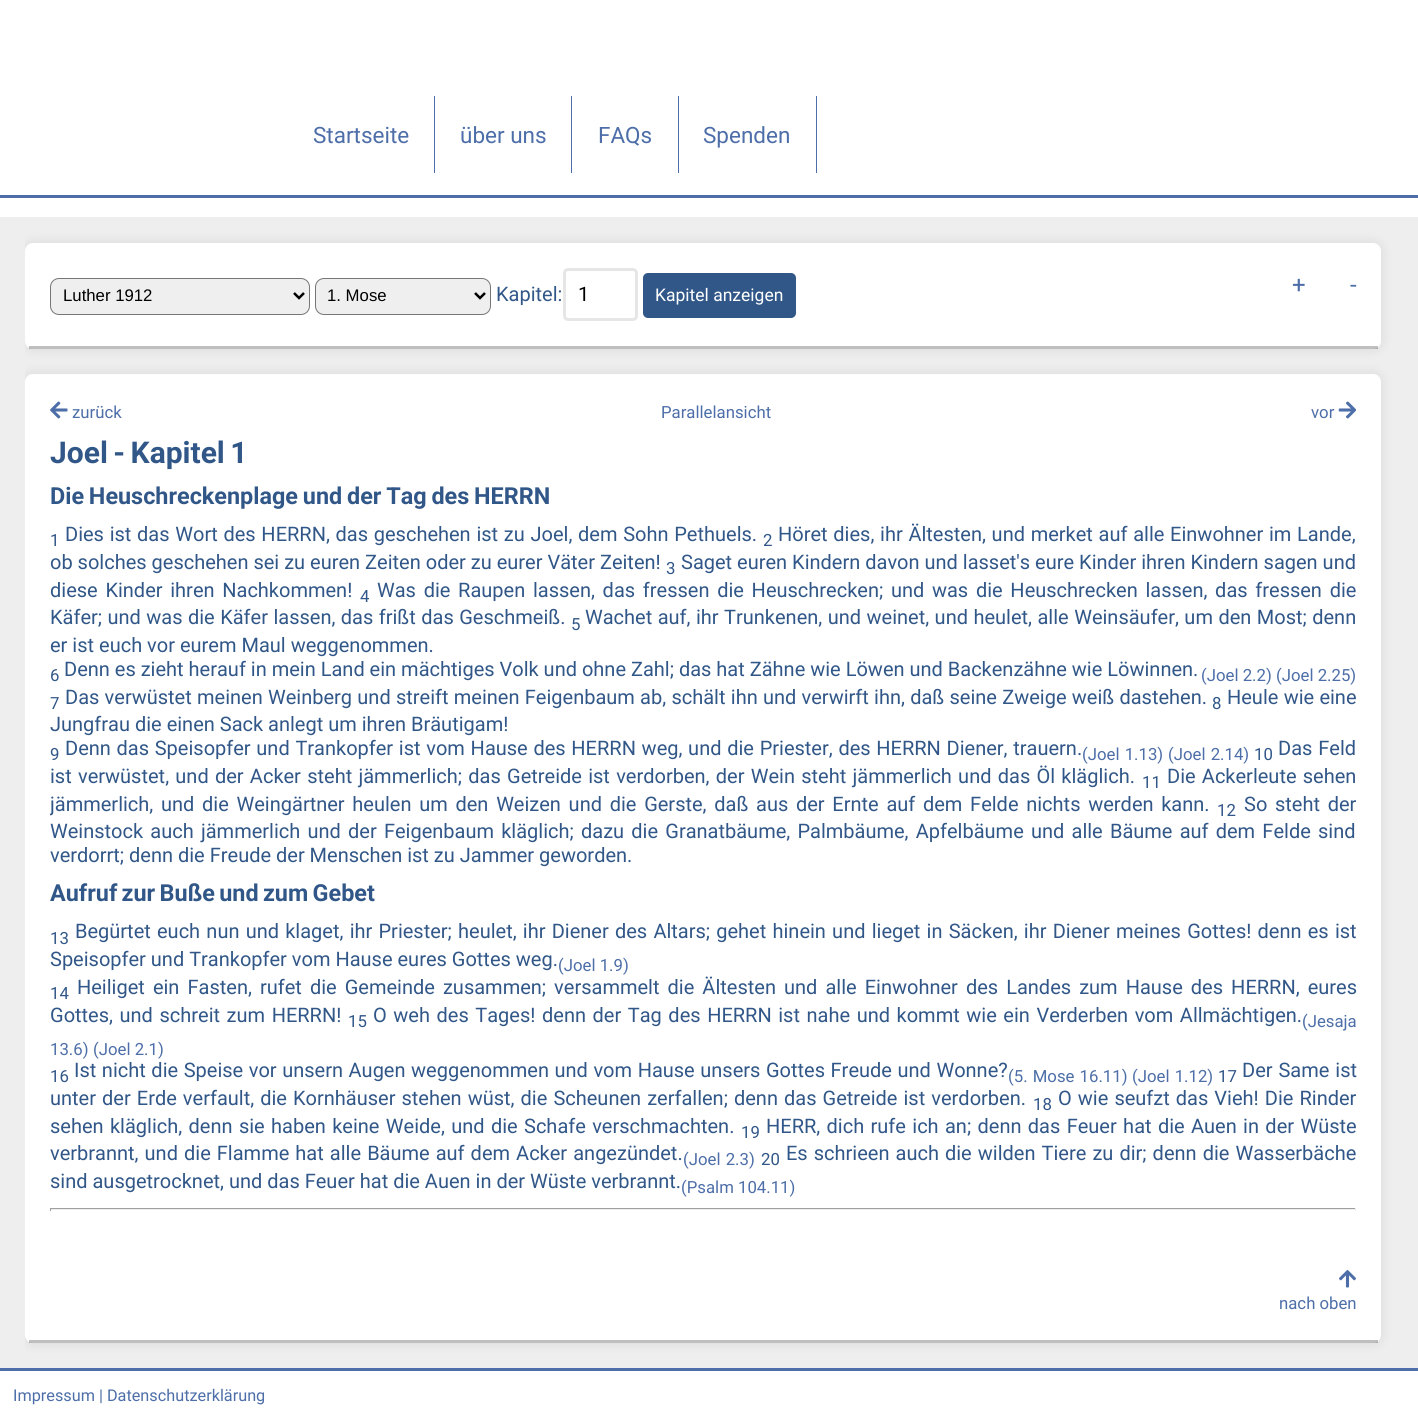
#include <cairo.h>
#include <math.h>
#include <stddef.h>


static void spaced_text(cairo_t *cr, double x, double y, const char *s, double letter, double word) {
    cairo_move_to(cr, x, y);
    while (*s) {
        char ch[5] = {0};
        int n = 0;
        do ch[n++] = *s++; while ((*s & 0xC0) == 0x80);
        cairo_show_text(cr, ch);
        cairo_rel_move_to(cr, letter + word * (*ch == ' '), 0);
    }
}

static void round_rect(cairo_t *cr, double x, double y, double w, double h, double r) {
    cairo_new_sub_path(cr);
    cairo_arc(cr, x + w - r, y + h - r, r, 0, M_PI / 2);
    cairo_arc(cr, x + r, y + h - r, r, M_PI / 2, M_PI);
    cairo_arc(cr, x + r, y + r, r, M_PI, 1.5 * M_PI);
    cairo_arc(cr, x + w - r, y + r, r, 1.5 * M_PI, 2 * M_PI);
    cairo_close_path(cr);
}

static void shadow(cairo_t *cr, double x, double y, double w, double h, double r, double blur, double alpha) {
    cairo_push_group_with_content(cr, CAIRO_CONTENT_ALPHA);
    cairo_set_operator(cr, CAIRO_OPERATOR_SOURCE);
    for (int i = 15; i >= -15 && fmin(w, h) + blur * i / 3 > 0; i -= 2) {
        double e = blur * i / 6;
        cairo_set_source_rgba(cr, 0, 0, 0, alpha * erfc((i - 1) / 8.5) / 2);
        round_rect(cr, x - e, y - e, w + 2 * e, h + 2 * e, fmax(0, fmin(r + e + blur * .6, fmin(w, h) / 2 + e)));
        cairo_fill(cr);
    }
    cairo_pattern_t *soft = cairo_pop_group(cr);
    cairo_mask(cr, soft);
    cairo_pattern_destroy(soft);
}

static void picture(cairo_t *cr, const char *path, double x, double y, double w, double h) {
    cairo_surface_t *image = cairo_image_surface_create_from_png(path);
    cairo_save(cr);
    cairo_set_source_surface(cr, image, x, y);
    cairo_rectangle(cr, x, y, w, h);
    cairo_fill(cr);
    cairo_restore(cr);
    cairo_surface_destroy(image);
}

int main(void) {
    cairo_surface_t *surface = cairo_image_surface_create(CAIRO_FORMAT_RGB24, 1418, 1415);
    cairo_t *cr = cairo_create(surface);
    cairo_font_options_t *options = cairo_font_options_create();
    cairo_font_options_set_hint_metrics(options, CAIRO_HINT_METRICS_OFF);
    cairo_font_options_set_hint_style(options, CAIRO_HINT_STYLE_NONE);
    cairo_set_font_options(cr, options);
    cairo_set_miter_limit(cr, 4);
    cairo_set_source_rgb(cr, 1, 1, 1);
    cairo_paint(cr);
    cairo_set_source_rgb(cr, 0.302, 0.431, 0.659);
    cairo_rectangle(cr, 0, 195, 1418, 3);
    cairo_fill(cr);
    cairo_rectangle(cr, 434, 96, 1, 77);
    cairo_fill(cr);
    cairo_select_font_face(cr, "Roboto", CAIRO_FONT_SLANT_NORMAL, CAIRO_FONT_WEIGHT_NORMAL);
    cairo_set_font_size(cr, 22.5);
    cairo_move_to(cr, 313, 143);
    cairo_show_text(cr, "Startseite");
    cairo_rectangle(cr, 571, 96, 1, 77);
    cairo_fill(cr);
    cairo_move_to(cr, 460, 143);
    cairo_show_text(cr, "über uns");
    cairo_rectangle(cr, 678, 96, 1, 77);
    cairo_fill(cr);
    cairo_move_to(cr, 598, 143);
    cairo_show_text(cr, "FAQs");
    cairo_rectangle(cr, 816, 96, 1, 77);
    cairo_fill(cr);
    cairo_move_to(cr, 703, 143);
    cairo_show_text(cr, "Spenden");
    cairo_set_source_rgb(cr, 0.933, 0.933, 0.933);
    cairo_rectangle(cr, 0, 217, 1418, 1151);
    cairo_fill(cr);
    cairo_save(cr);
    cairo_rectangle(cr, 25, 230, 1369, 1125);
    cairo_clip(cr);
    cairo_set_source_rgb(cr, 0, 0, 0);
    shadow(cr, 25, 243, 1356, 106, 8, 6, 0.1);
    cairo_restore(cr);
    cairo_set_source_rgb(cr, 1, 1, 1);
    round_rect(cr, 25, 243, 1356, 106, 8);
    cairo_fill(cr);
    cairo_set_source_rgba(cr, 0, 0, 0, 0.25);
    cairo_rectangle(cr, 29, 346, 1349, 3);
    cairo_fill(cr);
    cairo_set_source_rgb(cr, 0.937, 0.937, 0.937);
    round_rect(cr, 50.5, 278.5, 259, 36, 8.5);
    cairo_fill_preserve(cr);
    cairo_set_source_rgb(cr, 0.463, 0.463, 0.463);
    cairo_set_line_width(cr, 1);
    cairo_stroke(cr);
    cairo_new_path(cr);
    cairo_move_to(cr, 294, 293);
    cairo_line_to(cr, 299, 298);
    cairo_line_to(cr, 304, 293);
    cairo_set_source_rgb(cr, 0, 0, 0);
    cairo_set_line_width(cr, 2.5);
    cairo_stroke(cr);
    cairo_select_font_face(cr, "Liberation Sans", CAIRO_FONT_SLANT_NORMAL, CAIRO_FONT_WEIGHT_NORMAL);
    cairo_set_font_size(cr, 16.75);
    cairo_move_to(cr, 63, 301);
    cairo_show_text(cr, "Luther 1912");
    cairo_set_source_rgb(cr, 0.937, 0.937, 0.937);
    round_rect(cr, 315.5, 278.5, 175, 36, 8.5);
    cairo_fill_preserve(cr);
    cairo_set_source_rgb(cr, 0.463, 0.463, 0.463);
    cairo_set_line_width(cr, 1);
    cairo_stroke(cr);
    cairo_new_path(cr);
    cairo_move_to(cr, 475, 293);
    cairo_line_to(cr, 480, 298);
    cairo_line_to(cr, 485, 293);
    cairo_set_source_rgb(cr, 0, 0, 0);
    cairo_set_line_width(cr, 2.5);
    cairo_stroke(cr);
    cairo_move_to(cr, 327, 301);
    cairo_show_text(cr, "1. Mose");
    cairo_select_font_face(cr, "Roboto", CAIRO_FONT_SLANT_NORMAL, CAIRO_FONT_WEIGHT_NORMAL);
    cairo_set_font_size(cr, 20);
    cairo_set_source_rgb(cr, 0.192, 0.341, 0.533);
    cairo_move_to(cr, 496, 301);
    cairo_show_text(cr, "Kapitel:");
    round_rect(cr, 564.5, 269.5, 72, 50, 3.5);
    cairo_set_source_rgb(cr, 0.902, 0.902, 0.902);
    cairo_set_line_width(cr, 3);
    cairo_stroke(cr);
    cairo_set_source_rgb(cr, 0, 0, 0);
    cairo_move_to(cr, 578, 301);
    cairo_show_text(cr, "1");
    cairo_set_source_rgb(cr, 0.192, 0.341, 0.533);
    round_rect(cr, 643, 273, 153, 45, 5);
    cairo_fill(cr);
    cairo_set_font_size(cr, 17.5);
    cairo_set_source_rgb(cr, 1, 1, 1);
    cairo_move_to(cr, 655, 301);
    cairo_show_text(cr, "Kapitel anzeigen");
    cairo_set_font_size(cr, 24);
    cairo_set_source_rgb(cr, 0.302, 0.431, 0.659);
    cairo_move_to(cr, 1292, 293);
    cairo_show_text(cr, "+");
    cairo_move_to(cr, 1350, 293);
    cairo_show_text(cr, "-");
    cairo_save(cr);
    cairo_rectangle(cr, 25, 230, 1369, 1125);
    cairo_clip(cr);
    cairo_set_source_rgb(cr, 0, 0, 0);
    shadow(cr, 25, 374, 1356, 969, 8, 6, 0.1);
    cairo_restore(cr);
    cairo_set_source_rgb(cr, 1, 1, 1);
    round_rect(cr, 25, 374, 1356, 969, 8);
    cairo_fill(cr);
    cairo_set_source_rgba(cr, 0, 0, 0, 0.25);
    cairo_rectangle(cr, 29, 1340, 1349, 3);
    cairo_fill(cr);
    picture(cr, "img1.png", 50, 401, 18, 18);
    cairo_set_font_size(cr, 16.75);
    cairo_set_source_rgb(cr, 0.302, 0.431, 0.659);
    cairo_move_to(cr, 72, 418);
    cairo_show_text(cr, "zurück");
    cairo_move_to(cr, 661, 418);
    cairo_show_text(cr, "Parallelansicht");
    cairo_move_to(cr, 1311, 418);
    cairo_show_text(cr, "vor");
    picture(cr, "img2.png", 1338, 401, 18, 18);
    cairo_select_font_face(cr, "Roboto", CAIRO_FONT_SLANT_NORMAL, CAIRO_FONT_WEIGHT_BOLD);
    cairo_set_font_size(cr, 30);
    cairo_set_source_rgb(cr, 0.192, 0.341, 0.533);
    spaced_text(cr, 50, 463, "Joel - Kapitel 1", 0, -2);
    cairo_set_font_size(cr, 23.4);
    spaced_text(cr, 50, 504, "Die Heuschreckenplage und der Tag des HERRN", 0, -1);
    cairo_select_font_face(cr, "Roboto", CAIRO_FONT_SLANT_NORMAL, CAIRO_FONT_WEIGHT_NORMAL);
    cairo_set_font_size(cr, 16.75);
    cairo_move_to(cr, 50, 546);
    cairo_show_text(cr, "1");
    cairo_set_font_size(cr, 20);
    spaced_text(cr, 65, 541, "Dies ist das Wort des HERRN, das geschehen ist zu Joel, dem Sohn Pethuels.", 0, 0.75);
    cairo_set_font_size(cr, 16.75);
    cairo_move_to(cr, 763, 546);
    cairo_show_text(cr, "2");
    cairo_set_font_size(cr, 20);
    spaced_text(cr, 778, 541, "Höret dies, ihr Ältesten, und merket auf alle Einwohner im Lande,", 0, 0.75);
    cairo_move_to(cr, 50, 569);
    cairo_show_text(cr, "ob solches geschehen sei zu euren Zeiten oder zu eurer Väter Zeiten!");
    cairo_set_font_size(cr, 16.75);
    cairo_move_to(cr, 666, 574);
    cairo_show_text(cr, "3");
    cairo_set_font_size(cr, 20);
    cairo_move_to(cr, 681, 569);
    cairo_show_text(cr, "Saget euren Kindern davon und lasset's eure Kinder ihren Kindern sagen und");
    spaced_text(cr, 50, 597, "diese Kinder ihren Nachkommen!", 0, 2.75);
    cairo_set_font_size(cr, 16.75);
    cairo_move_to(cr, 360, 602);
    cairo_show_text(cr, "4");
    cairo_set_font_size(cr, 20);
    spaced_text(cr, 377, 597, "Was die Raupen lassen, das fressen die Heuschrecken; und was die Heuschrecken lassen, das fressen die", 0, 2.75);
    spaced_text(cr, 50, 624, "Käfer; und was die Käfer lassen, das frißt das Geschmeiß.", 0, 0.5);
    cairo_set_font_size(cr, 16.75);
    cairo_move_to(cr, 571, 630);
    cairo_show_text(cr, "5");
    cairo_set_font_size(cr, 20);
    spaced_text(cr, 585, 624, "Wachet auf, ihr Trunkenen, und weinet, und heulet, alle Weinsäufer, um den Most; denn", 0, 0.5);
    cairo_move_to(cr, 50, 652);
    cairo_show_text(cr, "er ist euch vor eurem Maul weggenommen.");
    cairo_set_font_size(cr, 16.75);
    cairo_move_to(cr, 50, 681);
    cairo_show_text(cr, "6");
    cairo_set_font_size(cr, 20);
    cairo_move_to(cr, 64, 676);
    cairo_show_text(cr, "Denn es zieht herauf in mein Land ein mächtiges Volk und ohne Zahl; das hat Zähne wie Löwen und Backenzähne wie Löwinnen.");
    cairo_set_font_size(cr, 16.75);
    cairo_set_source_rgb(cr, 0.302, 0.431, 0.659);
    cairo_move_to(cr, 1201, 681);
    cairo_show_text(cr, "(Joel 2.2)");
    cairo_move_to(cr, 1276, 681);
    cairo_show_text(cr, "(Joel 2.25)");
    cairo_set_source_rgb(cr, 0.192, 0.341, 0.533);
    cairo_move_to(cr, 50, 709);
    cairo_show_text(cr, "7");
    cairo_set_font_size(cr, 20);
    spaced_text(cr, 65, 704, "Das verwüstet meinen Weinberg und streift meinen Feigenbaum ab, schält ihn und verwirft ihn, daß seine Zweige weiß dastehen.", 0, 0.3);
    cairo_set_font_size(cr, 16.75);
    cairo_move_to(cr, 1212, 709);
    cairo_show_text(cr, "8");
    cairo_set_font_size(cr, 20);
    spaced_text(cr, 1227, 704, "Heule wie eine", 0, 0.3);
    cairo_move_to(cr, 50, 731);
    cairo_show_text(cr, "Jungfrau die einen Sack anlegt um ihren Bräutigam!");
    cairo_set_font_size(cr, 16.75);
    cairo_move_to(cr, 50, 760);
    cairo_show_text(cr, "9");
    cairo_set_font_size(cr, 20);
    spaced_text(cr, 65, 755, "Denn das Speisopfer und Trankopfer ist vom Hause des HERRN weg, und die Priester, des HERRN Diener, trauern.", 0, 0.75);
    cairo_set_font_size(cr, 16.75);
    cairo_set_source_rgb(cr, 0.302, 0.431, 0.659);
    spaced_text(cr, 1082, 760, "(Joel 1.13)", 0, 1);
    spaced_text(cr, 1168, 760, "(Joel 2.14)", 0, 1);
    cairo_set_source_rgb(cr, 0.192, 0.341, 0.533);
    cairo_move_to(cr, 1254, 760);
    cairo_show_text(cr, "10");
    cairo_set_font_size(cr, 20);
    spaced_text(cr, 1278, 755, "Das Feld", 0, 1);
    spaced_text(cr, 50, 783, "ist verwüstet, und der Acker steht jämmerlich; das Getreide ist verdorben, der Wein steht jämmerlich und das Öl kläglich.", 0, 1.3);
    cairo_set_font_size(cr, 16.75);
    cairo_move_to(cr, 1142, 788);
    cairo_show_text(cr, "11");
    cairo_set_font_size(cr, 20);
    spaced_text(cr, 1167, 783, "Die Ackerleute sehen", 0, 1.3);
    cairo_save(cr);
    cairo_rectangle(cr, 50, 399, 1306, 916);
    cairo_clip(cr);
    spaced_text(cr, 50, 811, "jämmerlich, und die Weingärtner heulen um den Weizen und die Gerste, daß aus der Ernte auf dem Felde nichts werden kann.", 0, 2.75);
    cairo_restore(cr);
    cairo_set_font_size(cr, 16.75);
    cairo_move_to(cr, 1217, 816);
    cairo_show_text(cr, "12");
    cairo_set_font_size(cr, 20);
    spaced_text(cr, 1244, 811, "So steht der", 0, 2.75);
    spaced_text(cr, 50, 838, "Weinstock auch jämmerlich und der Feigenbaum kläglich; dazu die Granatbäume, Palmbäume, Apfelbäume und alle Bäume auf dem Felde sind", 0, 2.25);
    cairo_move_to(cr, 50, 862);
    cairo_show_text(cr, "verdorrt; denn die Freude der Menschen ist zu Jammer geworden.");
    cairo_select_font_face(cr, "Roboto", CAIRO_FONT_SLANT_NORMAL, CAIRO_FONT_WEIGHT_BOLD);
    cairo_set_font_size(cr, 23.4);
    spaced_text(cr, 50, 901, "Aufruf zur Buße und zum Gebet", 0, -1.5);
    cairo_select_font_face(cr, "Roboto", CAIRO_FONT_SLANT_NORMAL, CAIRO_FONT_WEIGHT_NORMAL);
    cairo_set_font_size(cr, 16.75);
    cairo_move_to(cr, 50, 944);
    cairo_show_text(cr, "13");
    cairo_set_font_size(cr, 20);
    spaced_text(cr, 75, 938, "Begürtet euch nun und klaget, ihr Priester; heulet, ihr Diener des Altars; gehet hinein und lieget in Säcken, ihr Diener meines Gottes! denn es ist", 0, 1.25);
    cairo_move_to(cr, 50, 966);
    cairo_show_text(cr, "Speisopfer und Trankopfer vom Hause eures Gottes weg.");
    cairo_set_font_size(cr, 16.75);
    cairo_set_source_rgb(cr, 0.302, 0.431, 0.659);
    cairo_move_to(cr, 558, 971);
    cairo_show_text(cr, "(Joel 1.9)");
    cairo_set_source_rgb(cr, 0.192, 0.341, 0.533);
    cairo_move_to(cr, 50, 999);
    cairo_show_text(cr, "14");
    cairo_set_font_size(cr, 20);
    spaced_text(cr, 77, 994, "Heiliget ein Fasten, rufet die Gemeinde zusammen; versammelt die Ältesten und alle Einwohner des Landes zum Hause des HERRN, eures", 0, 3.1);
    spaced_text(cr, 50, 1022, "Gottes, und schreit zum HERRN!", 0, 1.6);
    cairo_set_font_size(cr, 16.75);
    cairo_move_to(cr, 348, 1027);
    cairo_show_text(cr, "15");
    cairo_set_font_size(cr, 20);
    spaced_text(cr, 373, 1022, "O weh des Tages! denn der Tag des HERRN ist nahe und kommt wie ein Verderben vom Allmächtigen.", 0, 1.6);
    cairo_set_font_size(cr, 16.75);
    cairo_set_source_rgb(cr, 0.302, 0.431, 0.659);
    cairo_move_to(cr, 1302, 1027);
    cairo_show_text(cr, "(Jesaja");
    cairo_move_to(cr, 50, 1055);
    cairo_show_text(cr, "13.6)");
    cairo_move_to(cr, 93, 1055);
    cairo_show_text(cr, "(Joel 2.1)");
    cairo_set_source_rgb(cr, 0.192, 0.341, 0.533);
    cairo_move_to(cr, 50, 1082);
    cairo_show_text(cr, "16");
    cairo_set_font_size(cr, 20);
    spaced_text(cr, 74, 1077, "Ist nicht die Speise vor unsern Augen weggenommen und vom Hause unsers Gottes Freude und Wonne?", 0, 0.6);
    cairo_set_font_size(cr, 16.75);
    cairo_set_source_rgb(cr, 0.302, 0.431, 0.659);
    spaced_text(cr, 1008, 1082, "(5. Mose 16.11)", 0, 1);
    spaced_text(cr, 1132, 1082, "(Joel 1.12)", 0, 1);
    cairo_set_source_rgb(cr, 0.192, 0.341, 0.533);
    cairo_move_to(cr, 1218, 1082);
    cairo_show_text(cr, "17");
    cairo_set_font_size(cr, 20);
    spaced_text(cr, 1242, 1077, "Der Same ist", 0, 1);
    spaced_text(cr, 50, 1105, "unter der Erde verfault, die Kornhäuser stehen wüst, die Scheunen zerfallen; denn das Getreide ist verdorben.", 0, 1.1);
    cairo_set_font_size(cr, 16.75);
    cairo_move_to(cr, 1033, 1110);
    cairo_show_text(cr, "18");
    cairo_set_font_size(cr, 20);
    spaced_text(cr, 1058, 1105, "O wie seufzt das Vieh! Die Rinder", 0, 1.1);
    spaced_text(cr, 50, 1133, "sehen kläglich, denn sie haben keine Weide, und die Schafe verschmachten.", 0, 1.4);
    cairo_set_font_size(cr, 16.75);
    cairo_move_to(cr, 741, 1138);
    cairo_show_text(cr, "19");
    cairo_set_font_size(cr, 20);
    spaced_text(cr, 766, 1133, "HERR, dich rufe ich an; denn das Feuer hat die Auen in der Wüste", 0, 1.4);
    spaced_text(cr, 50, 1160, "verbrannt, und die Flamme hat alle Bäume auf dem Acker angezündet.", 0, 1.1);
    cairo_set_font_size(cr, 16.75);
    cairo_set_source_rgb(cr, 0.302, 0.431, 0.659);
    spaced_text(cr, 683, 1165, "(Joel 2.3)", 0, 1);
    cairo_set_source_rgb(cr, 0.192, 0.341, 0.533);
    cairo_move_to(cr, 761, 1165);
    cairo_show_text(cr, "20");
    cairo_set_font_size(cr, 20);
    spaced_text(cr, 786, 1160, "Es schrieen auch die wilden Tiere zu dir; denn die Wasserbäche", 0, 1.1);
    cairo_move_to(cr, 50, 1188);
    cairo_show_text(cr, "sind ausgetrocknet, und das Feuer hat die Auen in der Wüste verbrannt.");
    cairo_set_font_size(cr, 16.75);
    cairo_set_source_rgb(cr, 0.302, 0.431, 0.659);
    cairo_move_to(cr, 681, 1193);
    cairo_show_text(cr, "(Psalm 104.11)");
    cairo_set_source_rgb(cr, 0.624, 0.624, 0.624);
    cairo_rectangle(cr, 50, 1208, 1306, 1);
    cairo_fill(cr);
    cairo_set_source_rgb(cr, 0.933, 0.933, 0.933);
    cairo_rectangle(cr, 1355, 1208, 1, 3);
    cairo_fill(cr);
    cairo_rectangle(cr, 50, 1209, 1306, 1);
    cairo_fill(cr);
    cairo_set_source_rgb(cr, 0.624, 0.624, 0.624);
    cairo_rectangle(cr, 50, 1208, 1, 3);
    cairo_fill(cr);
    picture(cr, "img3.png", 1339, 1270, 17, 18);
    cairo_set_source_rgb(cr, 0.302, 0.431, 0.659);
    cairo_move_to(cr, 1279, 1309);
    cairo_show_text(cr, "nach oben");
    cairo_rectangle(cr, 0, 1368, 1418, 3);
    cairo_fill(cr);
    cairo_set_font_size(cr, 16.25);
    cairo_move_to(cr, 13, 1401);
    cairo_show_text(cr, "Impressum | Datenschutzerklärung");
    cairo_surface_write_to_png(surface, "page.png");
    cairo_font_options_destroy(options);
    cairo_destroy(cr);
    cairo_surface_destroy(surface);
    return 0;
}
